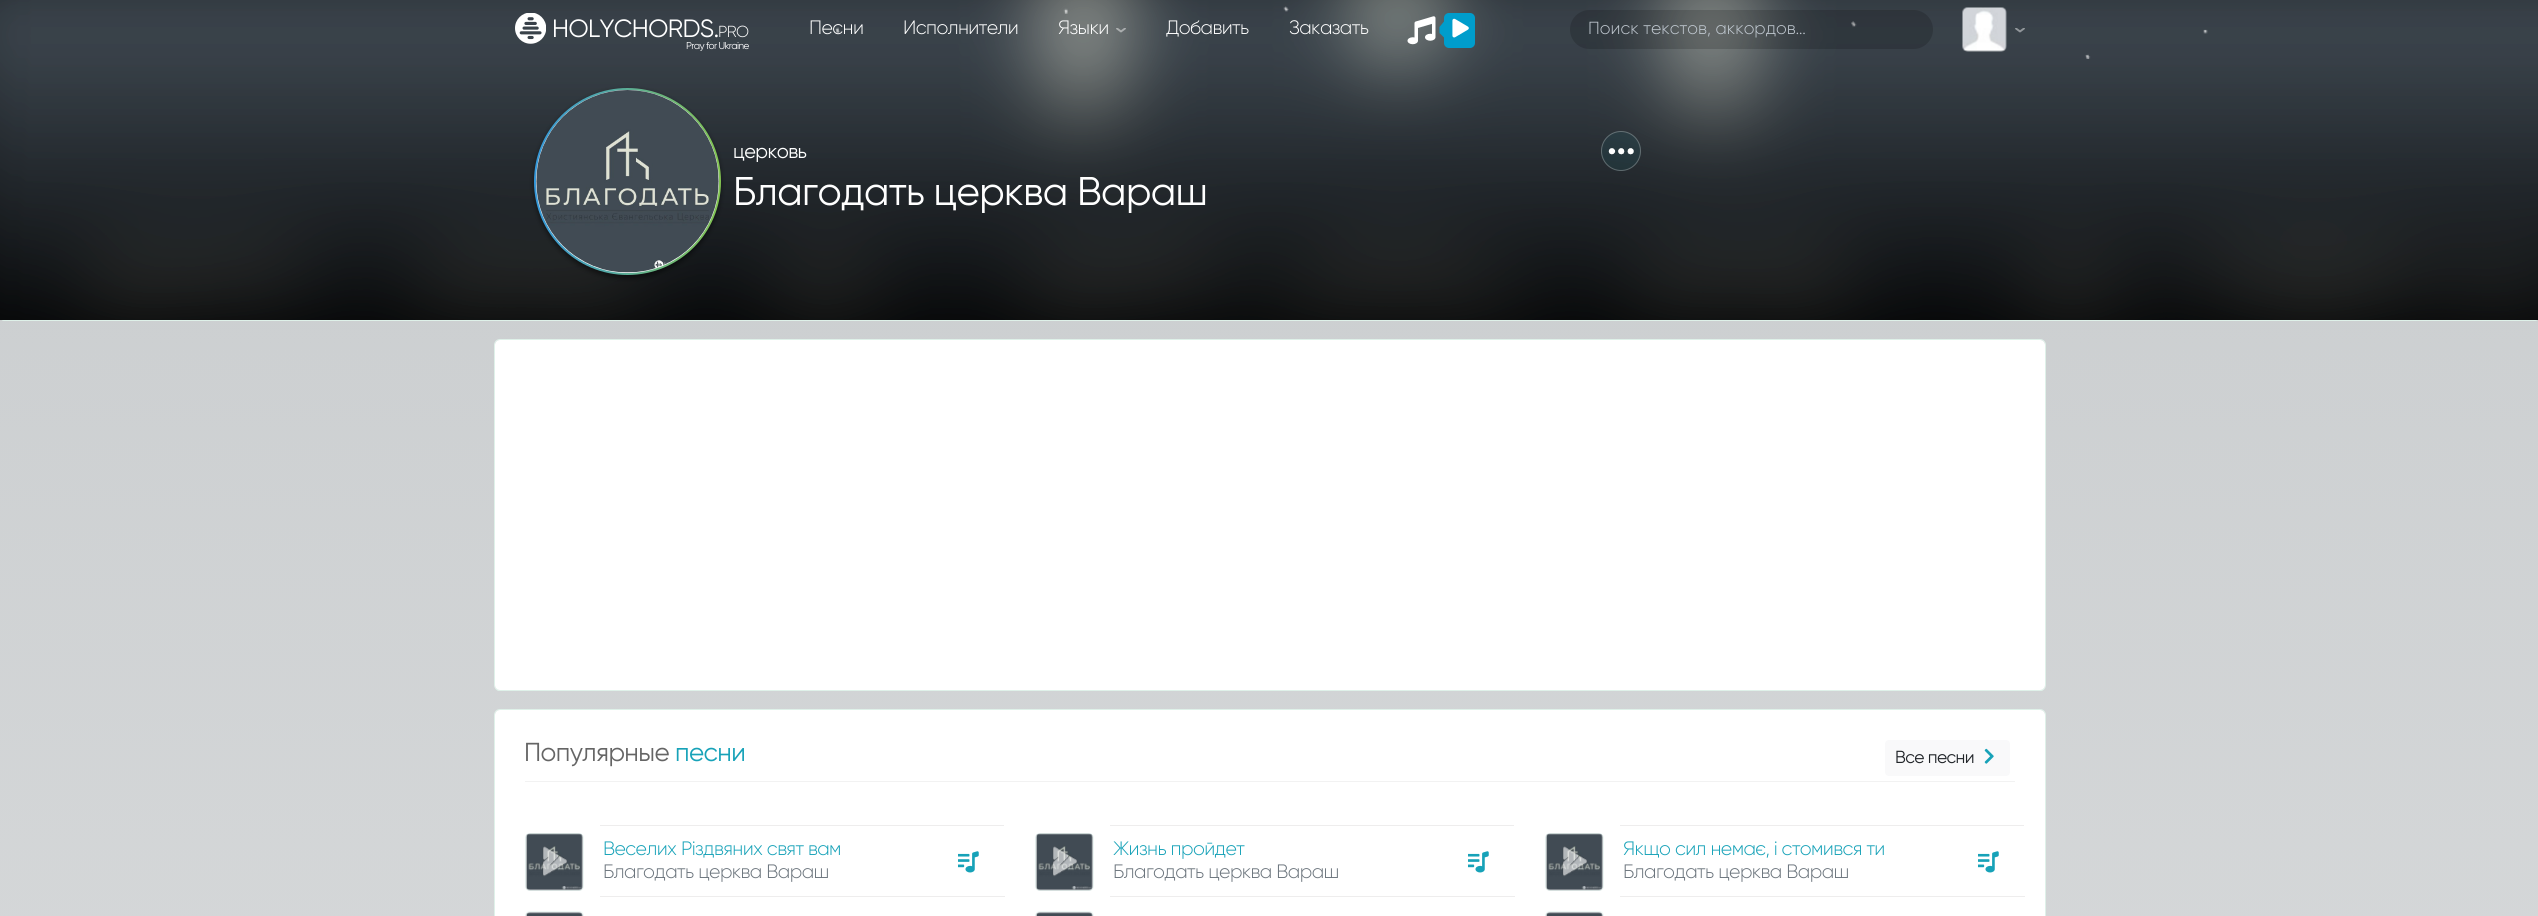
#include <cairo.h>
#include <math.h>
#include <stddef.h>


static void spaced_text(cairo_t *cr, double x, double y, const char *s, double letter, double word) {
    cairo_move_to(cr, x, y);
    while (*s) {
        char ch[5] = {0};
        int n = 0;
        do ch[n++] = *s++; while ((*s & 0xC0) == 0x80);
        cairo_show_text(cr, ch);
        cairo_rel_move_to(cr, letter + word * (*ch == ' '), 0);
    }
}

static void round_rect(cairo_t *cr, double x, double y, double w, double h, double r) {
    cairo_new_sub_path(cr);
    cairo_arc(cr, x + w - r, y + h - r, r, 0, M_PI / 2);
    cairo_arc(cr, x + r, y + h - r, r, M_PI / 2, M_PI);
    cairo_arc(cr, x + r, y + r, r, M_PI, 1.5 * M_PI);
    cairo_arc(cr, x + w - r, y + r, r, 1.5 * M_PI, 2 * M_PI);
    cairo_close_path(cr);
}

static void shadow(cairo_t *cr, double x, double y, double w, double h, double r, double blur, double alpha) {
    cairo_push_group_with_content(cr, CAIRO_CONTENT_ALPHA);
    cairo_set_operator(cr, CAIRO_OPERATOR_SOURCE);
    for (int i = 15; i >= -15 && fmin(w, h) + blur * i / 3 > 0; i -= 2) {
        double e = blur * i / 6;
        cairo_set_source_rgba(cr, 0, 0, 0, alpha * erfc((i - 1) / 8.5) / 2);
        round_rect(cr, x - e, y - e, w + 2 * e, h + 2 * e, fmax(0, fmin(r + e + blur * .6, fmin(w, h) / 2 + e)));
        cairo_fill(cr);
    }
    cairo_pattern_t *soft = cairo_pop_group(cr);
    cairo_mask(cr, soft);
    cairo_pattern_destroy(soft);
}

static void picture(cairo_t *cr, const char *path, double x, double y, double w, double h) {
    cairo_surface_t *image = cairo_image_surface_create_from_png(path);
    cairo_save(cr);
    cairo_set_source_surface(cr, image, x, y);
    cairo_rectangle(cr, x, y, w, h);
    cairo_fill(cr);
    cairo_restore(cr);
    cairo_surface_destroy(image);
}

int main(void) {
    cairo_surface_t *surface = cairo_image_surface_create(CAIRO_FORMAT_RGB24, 2538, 916);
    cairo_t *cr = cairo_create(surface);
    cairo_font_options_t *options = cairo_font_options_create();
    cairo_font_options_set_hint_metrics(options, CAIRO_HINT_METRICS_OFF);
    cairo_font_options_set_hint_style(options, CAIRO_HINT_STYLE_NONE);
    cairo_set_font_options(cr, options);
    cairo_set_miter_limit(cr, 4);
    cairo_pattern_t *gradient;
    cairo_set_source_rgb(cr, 1, 1, 1);
    cairo_paint(cr);
    picture(cr, "img1.png", 0, 320, 2538, 596);
    round_rect(cr, -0.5, -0.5, 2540, 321, 5.5);
    cairo_set_source_rgb(cr, 0.875, 0.945, 0.914);
    cairo_set_line_width(cr, 1);
    cairo_stroke(cr);
    cairo_new_path(cr);
    cairo_move_to(cr, 0, 315);
    cairo_line_to(cr, 0, 316);
    cairo_curve_to(cr, 0, 319, 2, 321, 5, 321);
    cairo_line_to(cr, 2534, 321);
    cairo_curve_to(cr, 2537, 321, 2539, 319, 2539, 316);
    cairo_line_to(cr, 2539, 4);
    cairo_line_to(cr, 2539, 315);
    cairo_curve_to(cr, 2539, 318, 2537, 320, 2534, 320);
    cairo_line_to(cr, 5, 320);
    cairo_curve_to(cr, 2, 320, 0, 318, 0, 315);
    cairo_close_path(cr);
    cairo_fill(cr);
    cairo_set_source_rgb(cr, 0, 0, 0);
    cairo_rectangle(cr, 0, 0, 2538, 320);
    cairo_fill(cr);
    picture(cr, "img7.png", 0, 0, 2538, 320);
    picture(cr, "img6.png", 1962, 7, 45, 45);
    picture(cr, "img2.png", 522, 6, 1686, 53);
    picture(cr, "img3.png", 515, 13, 31, 31);
    cairo_select_font_face(cr, "Gilroy", CAIRO_FONT_SLANT_NORMAL, CAIRO_FONT_WEIGHT_NORMAL);
    cairo_set_font_size(cr, 25);
    cairo_set_source_rgb(cr, 1, 1, 1);
    spaced_text(cr, 552, 37, "HOLYCHORDS.", -0.6, 0);
    cairo_select_font_face(cr, "Gilroy Light", CAIRO_FONT_SLANT_NORMAL, CAIRO_FONT_WEIGHT_NORMAL);
    cairo_set_font_size(cr, 16);
    spaced_text(cr, 718, 37, "PRO", -0.6, 0);
    cairo_select_font_face(cr, "Gilroy", CAIRO_FONT_SLANT_NORMAL, CAIRO_FONT_WEIGHT_NORMAL);
    cairo_set_font_size(cr, 10);
    spaced_text(cr, 686, 49, "Pray for Ukraine", -0.6, 0);
    cairo_select_font_face(cr, "Gilroy Light", CAIRO_FONT_SLANT_NORMAL, CAIRO_FONT_WEIGHT_NORMAL);
    cairo_set_font_size(cr, 19.4);
    spaced_text(cr, 809, 34, "Песни", -0.6, 0);
    spaced_text(cr, 903, 34, "Исполнители", -0.6, 0);
    spaced_text(cr, 1058, 34, "Языки", -0.6, 0);
    cairo_save(cr);
    cairo_rectangle(cr, 1116, 28, 10, 5);
    cairo_clip(cr);
    cairo_new_path(cr);
    cairo_move_to(cr, 1117, 28.5);
    cairo_line_to(cr, 1121, 31.5);
    cairo_line_to(cr, 1125, 28.5);
    cairo_set_source_rgba(cr, 1, 1, 1, 0.45);
    cairo_set_line_width(cr, 1.9);
    cairo_set_line_cap(cr, CAIRO_LINE_CAP_ROUND);
    cairo_set_line_join(cr, CAIRO_LINE_JOIN_ROUND);
    cairo_stroke(cr);
    cairo_restore(cr);
    spaced_text(cr, 1166, 34, "Добавить", -0.6, 0);
    spaced_text(cr, 1289, 34, "Заказать", -0.6, 0);
    picture(cr, "img4.png", 1407, 16, 29, 29);
    cairo_set_source_rgb(cr, 0, 0.616, 0.8);
    round_rect(cr, 1444, 13, 31, 35, 5);
    cairo_fill(cr);
    cairo_new_path(cr);
    cairo_move_to(cr, 1445, 37.5);
    cairo_line_to(cr, 1444.5, 38);
    cairo_line_to(cr, 1439.5, 33);
    cairo_line_to(cr, 1439.5, 27);
    cairo_line_to(cr, 1444, 21.5);
    cairo_curve_to(cr, 1444.5, 22, 1444.5, 34.5, 1445, 37.5);
    cairo_close_path(cr);
    cairo_fill(cr);
    picture(cr, "img5.png", 1452, 18, 17, 20);
    cairo_set_source_rgba(cr, 0, 0, 0, 0.17);
    round_rect(cr, 1570, 10, 363, 39, 19.5);
    cairo_fill(cr);
    cairo_set_font_size(cr, 17.5);
    cairo_set_source_rgb(cr, 0.753, 0.784, 0.816);
    cairo_move_to(cr, 1588, 34);
    cairo_show_text(cr, "Поиск текстов, аккордов…");
    cairo_save(cr);
    cairo_rectangle(cr, 2015, 28, 10, 5);
    cairo_clip(cr);
    cairo_new_path(cr);
    cairo_move_to(cr, 2016, 28.5);
    cairo_line_to(cr, 2020, 31.5);
    cairo_line_to(cr, 2024, 28.5);
    cairo_set_source_rgb(cr, 0.573, 0.592, 0.608);
    cairo_set_line_width(cr, 1.9);
    cairo_set_line_cap(cr, CAIRO_LINE_CAP_ROUND);
    cairo_set_line_join(cr, CAIRO_LINE_JOIN_ROUND);
    cairo_stroke(cr);
    cairo_restore(cr);
    cairo_set_source_rgb(cr, 0, 0, 0);
    shadow(cr, 534, 90, 187, 188, 93.5, 2.5, 0.5);
    gradient = cairo_pattern_create_linear(534, 181, 721, 181);
    cairo_pattern_add_color_stop_rgba(gradient, 0, 0.208, 0.596, 0.859, 1);
    cairo_pattern_add_color_stop_rgba(gradient, 1, 0.514, 0.769, 0.318, 1);
    cairo_set_source(cr, gradient);
    cairo_pattern_destroy(gradient);
    cairo_arc(cr, 627.5, 181.5, 93.5, 0, 2 * M_PI);
    cairo_fill(cr);
    cairo_set_source_rgb(cr, 1, 1, 1);
    cairo_arc(cr, 627.5, 181.5, 91.5, 0, 2 * M_PI);
    cairo_fill(cr);
    picture(cr, "img8.png", 536, 90, 183, 183);
    cairo_select_font_face(cr, "Gilroy", CAIRO_FONT_SLANT_NORMAL, CAIRO_FONT_WEIGHT_NORMAL);
    cairo_set_font_size(cr, 20);
    spaced_text(cr, 733, 158, "церковь", -0.6, 0);
    cairo_set_source_rgba(cr, 0.09, 0.635, 0.722, 0.08);
    cairo_new_path(cr);
    cairo_arc(cr, 1621, 151, 20, 0, 2 * M_PI);
    cairo_fill(cr);
    cairo_arc(cr, 1621, 151, 19.5, 0, 2 * M_PI);
    cairo_set_source_rgba(cr, 0.875, 0.875, 0.875, 0.32);
    cairo_stroke(cr);
    picture(cr, "img9.png", 1608, 148, 26, 7);
    cairo_set_font_size(cr, 40);
    cairo_set_source_rgb(cr, 1, 1, 1);
    spaced_text(cr, 733, 205, "Благодать церква Вараш", -0.6, 0);
    round_rect(cr, 494.5, 339.5, 1551, 351, 5.5);
    cairo_set_source_rgb(cr, 0.875, 0.945, 0.914);
    cairo_stroke(cr);
    cairo_new_path(cr);
    cairo_move_to(cr, 495, 685);
    cairo_line_to(cr, 495, 686);
    cairo_curve_to(cr, 495, 689, 497, 691, 500, 691);
    cairo_line_to(cr, 2040, 691);
    cairo_curve_to(cr, 2043, 691, 2045, 689, 2045, 686);
    cairo_line_to(cr, 2045, 685);
    cairo_curve_to(cr, 2045, 688, 2043, 690, 2040, 690);
    cairo_line_to(cr, 500, 690);
    cairo_curve_to(cr, 497, 690, 495, 688, 495, 685);
    cairo_close_path(cr);
    cairo_fill(cr);
    cairo_set_source_rgb(cr, 1, 1, 1);
    round_rect(cr, 495, 340, 1550, 350, 5);
    cairo_fill(cr);
    round_rect(cr, 494.5, 709.5, 1551, 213, 5.5);
    cairo_set_source_rgb(cr, 0.875, 0.945, 0.914);
    cairo_stroke(cr);
    cairo_set_source_rgb(cr, 1, 1, 1);
    round_rect(cr, 495, 710, 1550, 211, 5);
    cairo_fill(cr);
    cairo_set_source_rgb(cr, 0.949, 0.949, 0.949);
    cairo_rectangle(cr, 525, 781, 1490, 1);
    cairo_fill(cr);
    cairo_set_font_size(cr, 26);
    cairo_set_source_rgb(cr, 0.396, 0.396, 0.396);
    spaced_text(cr, 524, 761, "Популярные", -0.6, 0);
    cairo_set_source_rgb(cr, 0.09, 0.635, 0.722);
    spaced_text(cr, 675, 761, "песни", -0.6, 0);
    cairo_set_source_rgb(cr, 0.973, 0.976, 0.98);
    round_rect(cr, 1885, 740, 125, 36, 4);
    cairo_fill(cr);
    cairo_set_font_size(cr, 17.5);
    cairo_set_source_rgb(cr, 0.129, 0.145, 0.161);
    spaced_text(cr, 1895, 763, "Все песни", -0.6, 0);
    picture(cr, "img10.png", 1984, 748, 10, 16);
    cairo_set_source_rgb(cr, 0.933, 0.929, 0.929);
    cairo_rectangle(cr, 600, 825, 404, 1);
    cairo_fill(cr);
    round_rect(cr, 525.5, 833.5, 58, 57, 4.5);
    cairo_set_source_rgb(cr, 0.929, 0.965, 0.957);
    cairo_stroke(cr);
    picture(cr, "img11.png", 525, 833, 58, 58);
    picture(cr, "img12.png", 542, 846, 25, 31);
    cairo_select_font_face(cr, "Gilroy Light", CAIRO_FONT_SLANT_NORMAL, CAIRO_FONT_WEIGHT_NORMAL);
    cairo_set_font_size(cr, 19.4);
    cairo_set_source_rgb(cr, 0.09, 0.635, 0.722);
    spaced_text(cr, 603, 855, "Веселих Різдвяних свят вам", -0.6, 0);
    cairo_set_source_rgb(cr, 0.424, 0.459, 0.49);
    spaced_text(cr, 603, 878, "Благодать церква Вараш", -0.6, 0);
    picture(cr, "img13.png", 958, 851, 21, 22);
    cairo_set_source_rgb(cr, 0.933, 0.929, 0.929);
    cairo_rectangle(cr, 600, 896, 405, 1);
    cairo_fill(cr);
    round_rect(cr, 525.5, 911.5, 58, 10, 4.5);
    cairo_set_source_rgb(cr, 0.929, 0.965, 0.957);
    cairo_stroke(cr);
    picture(cr, "img14.png", 525, 912, 58, 4);
    cairo_set_source_rgb(cr, 0.933, 0.929, 0.929);
    cairo_rectangle(cr, 1110, 825, 404, 1);
    cairo_fill(cr);
    round_rect(cr, 1035.5, 833.5, 58, 57, 4.5);
    cairo_set_source_rgb(cr, 0.929, 0.965, 0.957);
    cairo_stroke(cr);
    picture(cr, "img11.png", 1035, 833, 58, 58);
    picture(cr, "img12.png", 1052, 846, 25, 31);
    cairo_set_source_rgb(cr, 0.09, 0.635, 0.722);
    spaced_text(cr, 1113, 855, "Жизнь пройдет", -0.6, 0);
    cairo_set_source_rgb(cr, 0.424, 0.459, 0.49);
    spaced_text(cr, 1113, 878, "Благодать церква Вараш", -0.6, 0);
    picture(cr, "img13.png", 1468, 851, 21, 22);
    cairo_set_source_rgb(cr, 0.933, 0.929, 0.929);
    cairo_rectangle(cr, 1110, 896, 405, 1);
    cairo_fill(cr);
    round_rect(cr, 1035.5, 911.5, 58, 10, 4.5);
    cairo_set_source_rgb(cr, 0.929, 0.965, 0.957);
    cairo_stroke(cr);
    picture(cr, "img14.png", 1035, 912, 58, 4);
    cairo_set_source_rgb(cr, 0.933, 0.929, 0.929);
    cairo_rectangle(cr, 1620, 825, 404, 1);
    cairo_fill(cr);
    round_rect(cr, 1545.5, 833.5, 58, 57, 4.5);
    cairo_set_source_rgb(cr, 0.929, 0.965, 0.957);
    cairo_stroke(cr);
    picture(cr, "img11.png", 1545, 833, 58, 58);
    picture(cr, "img12.png", 1562, 846, 25, 31);
    cairo_set_source_rgb(cr, 0.09, 0.635, 0.722);
    spaced_text(cr, 1623, 855, "Якщо сил немає, і стомився ти", -0.6, 0);
    cairo_set_source_rgb(cr, 0.424, 0.459, 0.49);
    spaced_text(cr, 1623, 878, "Благодать церква Вараш", -0.6, 0);
    picture(cr, "img13.png", 1978, 851, 21, 22);
    cairo_set_source_rgb(cr, 0.933, 0.929, 0.929);
    cairo_rectangle(cr, 1620, 896, 405, 1);
    cairo_fill(cr);
    round_rect(cr, 1545.5, 911.5, 58, 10, 4.5);
    cairo_set_source_rgb(cr, 0.929, 0.965, 0.957);
    cairo_stroke(cr);
    picture(cr, "img14.png", 1545, 912, 58, 4);
    cairo_surface_write_to_png(surface, "page.png");
    cairo_font_options_destroy(options);
    cairo_destroy(cr);
    cairo_surface_destroy(surface);
    return 0;
}
